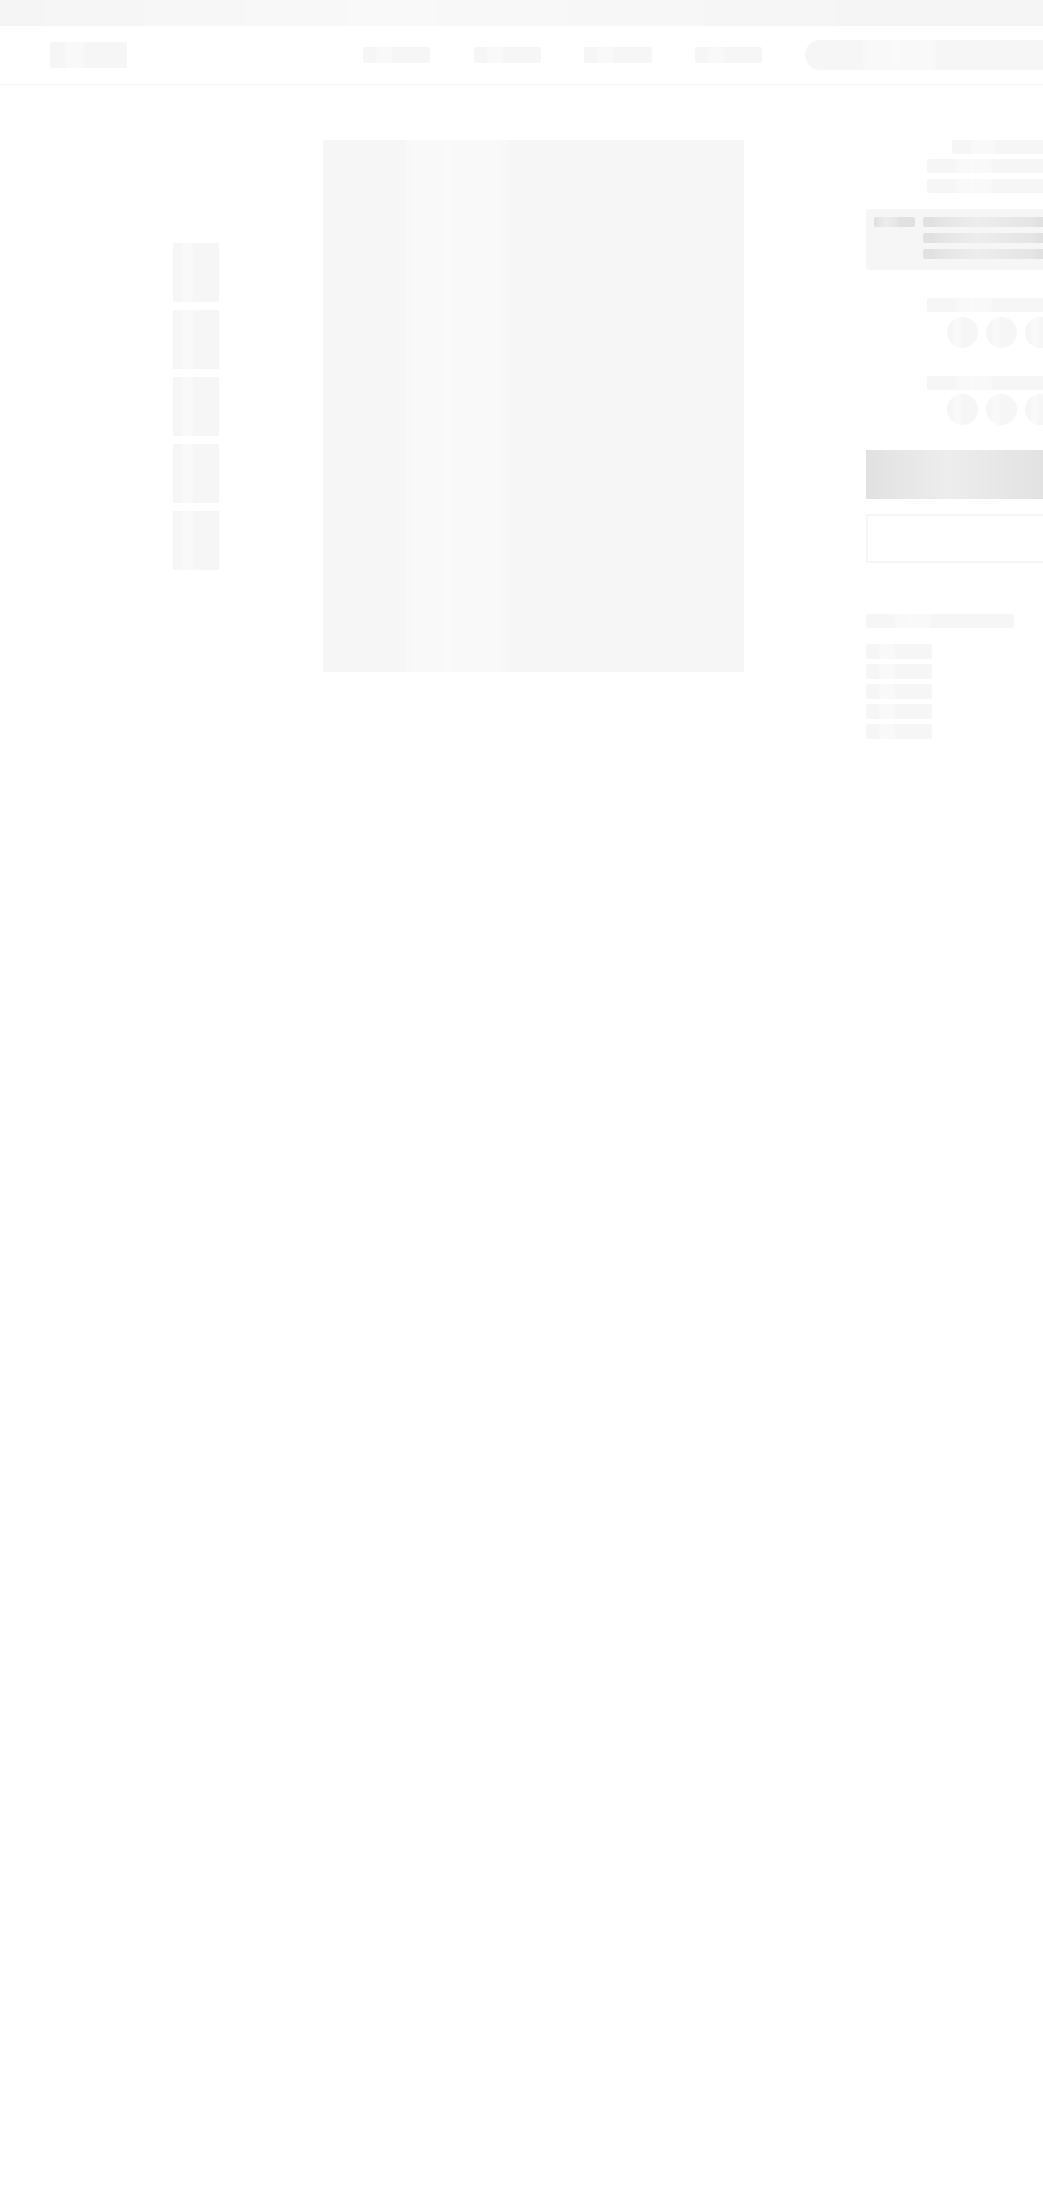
#include <cairo.h>
#include <math.h>
#include <stddef.h>


static void round_rect(cairo_t *cr, double x, double y, double w, double h, double r) {
    cairo_new_sub_path(cr);
    cairo_arc(cr, x + w - r, y + h - r, r, 0, M_PI / 2);
    cairo_arc(cr, x + r, y + h - r, r, M_PI / 2, M_PI);
    cairo_arc(cr, x + r, y + r, r, M_PI, 1.5 * M_PI);
    cairo_arc(cr, x + w - r, y + r, r, 1.5 * M_PI, 2 * M_PI);
    cairo_close_path(cr);
}

int main(void) {
    cairo_surface_t *surface = cairo_image_surface_create(CAIRO_FORMAT_RGB24, 1043, 2210);
    cairo_t *cr = cairo_create(surface);
    cairo_font_options_t *options = cairo_font_options_create();
    cairo_font_options_set_hint_metrics(options, CAIRO_HINT_METRICS_OFF);
    cairo_font_options_set_hint_style(options, CAIRO_HINT_STYLE_NONE);
    cairo_set_font_options(cr, options);
    cairo_set_miter_limit(cr, 4);
    cairo_pattern_t *gradient;
    cairo_set_source_rgb(cr, 1, 1, 1);
    cairo_paint(cr);
    cairo_set_source_rgb(cr, 0.961, 0.961, 0.961);
    cairo_rectangle(cr, 0, 84, 1043, 1);
    cairo_fill(cr);
    gradient = cairo_pattern_create_linear(0, 13, 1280, 13);
    cairo_pattern_add_color_stop_rgba(gradient, 0, 0.961, 0.961, 0.961, 1);
    cairo_pattern_add_color_stop_rgba(gradient, 0.3, 0.976, 0.976, 0.976, 1);
    cairo_pattern_add_color_stop_rgba(gradient, 0.7, 0.961, 0.961, 0.961, 1);
    cairo_set_source(cr, gradient);
    cairo_pattern_destroy(gradient);
    cairo_rectangle(cr, 0, 0, 1043, 26);
    cairo_fill(cr);
    cairo_set_source_rgb(cr, 0.961, 0.961, 0.961);
    round_rect(cr, 50, 42, 77, 26, 2);
    cairo_fill(cr);
    gradient = cairo_pattern_create_linear(50, 55, 127, 55);
    cairo_pattern_add_color_stop_rgba(gradient, 0, 1, 1, 1, 0);
    cairo_pattern_add_color_stop_rgba(gradient, 0.3, 1, 1, 1, 0.4);
    cairo_pattern_add_color_stop_rgba(gradient, 0.7, 1, 1, 1, 0);
    cairo_set_source(cr, gradient);
    cairo_pattern_destroy(gradient);
    cairo_rectangle(cr, 65, 42, 19, 26);
    cairo_fill(cr);
    cairo_set_source_rgb(cr, 0.961, 0.961, 0.961);
    round_rect(cr, 363, 47, 67, 16, 2);
    cairo_fill(cr);
    gradient = cairo_pattern_create_linear(363, 55, 430, 55);
    cairo_pattern_add_color_stop_rgba(gradient, 0, 1, 1, 1, 0);
    cairo_pattern_add_color_stop_rgba(gradient, 0.3, 1, 1, 1, 0.4);
    cairo_pattern_add_color_stop_rgba(gradient, 0.7, 1, 1, 1, 0);
    cairo_set_source(cr, gradient);
    cairo_pattern_destroy(gradient);
    cairo_rectangle(cr, 376, 47, 16, 16);
    cairo_fill(cr);
    cairo_set_source_rgb(cr, 0.961, 0.961, 0.961);
    round_rect(cr, 474, 47, 67, 16, 2);
    cairo_fill(cr);
    gradient = cairo_pattern_create_linear(474, 55, 541, 55);
    cairo_pattern_add_color_stop_rgba(gradient, 0, 1, 1, 1, 0);
    cairo_pattern_add_color_stop_rgba(gradient, 0.3, 1, 1, 1, 0.4);
    cairo_pattern_add_color_stop_rgba(gradient, 0.7, 1, 1, 1, 0);
    cairo_set_source(cr, gradient);
    cairo_pattern_destroy(gradient);
    cairo_rectangle(cr, 487, 47, 16, 16);
    cairo_fill(cr);
    cairo_set_source_rgb(cr, 0.961, 0.961, 0.961);
    round_rect(cr, 584, 47, 68, 16, 2);
    cairo_fill(cr);
    gradient = cairo_pattern_create_linear(584, 55, 652, 55);
    cairo_pattern_add_color_stop_rgba(gradient, 0, 1, 1, 1, 0);
    cairo_pattern_add_color_stop_rgba(gradient, 0.3, 1, 1, 1, 0.4);
    cairo_pattern_add_color_stop_rgba(gradient, 0.7, 1, 1, 1, 0);
    cairo_set_source(cr, gradient);
    cairo_pattern_destroy(gradient);
    cairo_rectangle(cr, 597, 47, 17, 16);
    cairo_fill(cr);
    cairo_set_source_rgb(cr, 0.961, 0.961, 0.961);
    round_rect(cr, 695, 47, 67, 16, 2);
    cairo_fill(cr);
    gradient = cairo_pattern_create_linear(695, 55, 762, 55);
    cairo_pattern_add_color_stop_rgba(gradient, 0, 1, 1, 1, 0);
    cairo_pattern_add_color_stop_rgba(gradient, 0.3, 1, 1, 1, 0.4);
    cairo_pattern_add_color_stop_rgba(gradient, 0.7, 1, 1, 1, 0);
    cairo_set_source(cr, gradient);
    cairo_pattern_destroy(gradient);
    cairo_rectangle(cr, 708, 47, 16, 16);
    cairo_fill(cr);
    cairo_set_source_rgb(cr, 0.961, 0.961, 0.961);
    round_rect(cr, 805, 40, 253, 30, 15);
    cairo_fill(cr);
    gradient = cairo_pattern_create_linear(805, 55, 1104, 55);
    cairo_pattern_add_color_stop_rgba(gradient, 0, 1, 1, 1, 0);
    cairo_pattern_add_color_stop_rgba(gradient, 0.3, 1, 1, 1, 0.4);
    cairo_pattern_add_color_stop_rgba(gradient, 0.7, 1, 1, 1, 0);
    cairo_set_source(cr, gradient);
    cairo_pattern_destroy(gradient);
    cairo_rectangle(cr, 863, 40, 73, 30);
    cairo_fill(cr);
    cairo_set_source_rgb(cr, 0.961, 0.961, 0.961);
    round_rect(cr, 173, 243, 46, 59, 2);
    cairo_fill(cr);
    gradient = cairo_pattern_create_linear(173, 273, 219, 273);
    cairo_pattern_add_color_stop_rgba(gradient, 0, 1, 1, 1, 0);
    cairo_pattern_add_color_stop_rgba(gradient, 0.3, 1, 1, 1, 0.4);
    cairo_pattern_add_color_stop_rgba(gradient, 0.7, 1, 1, 1, 0);
    cairo_set_source(cr, gradient);
    cairo_pattern_destroy(gradient);
    cairo_rectangle(cr, 182, 243, 11, 59);
    cairo_fill(cr);
    cairo_set_source_rgb(cr, 0.961, 0.961, 0.961);
    round_rect(cr, 173, 310, 46, 59, 2);
    cairo_fill(cr);
    gradient = cairo_pattern_create_linear(173, 340, 219, 340);
    cairo_pattern_add_color_stop_rgba(gradient, 0, 1, 1, 1, 0);
    cairo_pattern_add_color_stop_rgba(gradient, 0.3, 1, 1, 1, 0.4);
    cairo_pattern_add_color_stop_rgba(gradient, 0.7, 1, 1, 1, 0);
    cairo_set_source(cr, gradient);
    cairo_pattern_destroy(gradient);
    cairo_rectangle(cr, 182, 310, 11, 59);
    cairo_fill(cr);
    cairo_set_source_rgb(cr, 0.961, 0.961, 0.961);
    round_rect(cr, 173, 377, 46, 59, 2);
    cairo_fill(cr);
    gradient = cairo_pattern_create_linear(173, 407, 219, 407);
    cairo_pattern_add_color_stop_rgba(gradient, 0, 1, 1, 1, 0);
    cairo_pattern_add_color_stop_rgba(gradient, 0.3, 1, 1, 1, 0.4);
    cairo_pattern_add_color_stop_rgba(gradient, 0.7, 1, 1, 1, 0);
    cairo_set_source(cr, gradient);
    cairo_pattern_destroy(gradient);
    cairo_rectangle(cr, 182, 377, 11, 59);
    cairo_fill(cr);
    cairo_set_source_rgb(cr, 0.961, 0.961, 0.961);
    round_rect(cr, 173, 444, 46, 59, 2);
    cairo_fill(cr);
    gradient = cairo_pattern_create_linear(173, 474, 219, 474);
    cairo_pattern_add_color_stop_rgba(gradient, 0, 1, 1, 1, 0);
    cairo_pattern_add_color_stop_rgba(gradient, 0.3, 1, 1, 1, 0.4);
    cairo_pattern_add_color_stop_rgba(gradient, 0.7, 1, 1, 1, 0);
    cairo_set_source(cr, gradient);
    cairo_pattern_destroy(gradient);
    cairo_rectangle(cr, 182, 444, 11, 59);
    cairo_fill(cr);
    cairo_set_source_rgb(cr, 0.961, 0.961, 0.961);
    round_rect(cr, 173, 511, 46, 59, 2);
    cairo_fill(cr);
    gradient = cairo_pattern_create_linear(173, 541, 219, 541);
    cairo_pattern_add_color_stop_rgba(gradient, 0, 1, 1, 1, 0);
    cairo_pattern_add_color_stop_rgba(gradient, 0.3, 1, 1, 1, 0.4);
    cairo_pattern_add_color_stop_rgba(gradient, 0.7, 1, 1, 1, 0);
    cairo_set_source(cr, gradient);
    cairo_pattern_destroy(gradient);
    cairo_rectangle(cr, 182, 511, 11, 59);
    cairo_fill(cr);
    cairo_set_source_rgb(cr, 0.961, 0.961, 0.961);
    round_rect(cr, 323, 140, 421, 532, 2);
    cairo_fill(cr);
    gradient = cairo_pattern_create_linear(323, 406, 744, 406);
    cairo_pattern_add_color_stop_rgba(gradient, 0, 1, 1, 1, 0);
    cairo_pattern_add_color_stop_rgba(gradient, 0.3, 1, 1, 1, 0.4);
    cairo_pattern_add_color_stop_rgba(gradient, 0.7, 1, 1, 1, 0);
    cairo_set_source(cr, gradient);
    cairo_pattern_destroy(gradient);
    cairo_rectangle(cr, 405, 140, 103, 532);
    cairo_fill(cr);
    cairo_set_source_rgb(cr, 0.961, 0.961, 0.961);
    cairo_new_path(cr);
    cairo_move_to(cr, 954, 140);
    cairo_line_to(cr, 1043, 140);
    cairo_line_to(cr, 1043, 154);
    cairo_line_to(cr, 954, 154);
    cairo_curve_to(cr, 953, 154, 952, 153, 952, 152);
    cairo_line_to(cr, 952, 142);
    cairo_curve_to(cr, 952, 141, 953, 140, 954, 140);
    cairo_close_path(cr);
    cairo_fill(cr);
    gradient = cairo_pattern_create_linear(952, 147, 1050, 147);
    cairo_pattern_add_color_stop_rgba(gradient, 0, 1, 1, 1, 0);
    cairo_pattern_add_color_stop_rgba(gradient, 0.3, 1, 1, 1, 0.4);
    cairo_pattern_add_color_stop_rgba(gradient, 0.7, 1, 1, 1, 0);
    cairo_set_source(cr, gradient);
    cairo_pattern_destroy(gradient);
    cairo_rectangle(cr, 971, 140, 24, 14);
    cairo_fill(cr);
    cairo_set_source_rgb(cr, 0.961, 0.961, 0.961);
    cairo_new_path(cr);
    cairo_move_to(cr, 929, 159);
    cairo_line_to(cr, 1043, 159);
    cairo_line_to(cr, 1043, 173);
    cairo_line_to(cr, 929, 173);
    cairo_curve_to(cr, 928, 173, 927, 172, 927, 171);
    cairo_line_to(cr, 927, 161);
    cairo_curve_to(cr, 927, 160, 928, 159, 929, 159);
    cairo_close_path(cr);
    cairo_fill(cr);
    gradient = cairo_pattern_create_linear(927, 166, 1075, 166);
    cairo_pattern_add_color_stop_rgba(gradient, 0, 1, 1, 1, 0);
    cairo_pattern_add_color_stop_rgba(gradient, 0.3, 1, 1, 1, 0.4);
    cairo_pattern_add_color_stop_rgba(gradient, 0.7, 1, 1, 1, 0);
    cairo_set_source(cr, gradient);
    cairo_pattern_destroy(gradient);
    cairo_rectangle(cr, 956, 159, 36, 14);
    cairo_fill(cr);
    cairo_set_source_rgb(cr, 0.961, 0.961, 0.961);
    cairo_new_path(cr);
    cairo_move_to(cr, 929, 179);
    cairo_line_to(cr, 1043, 179);
    cairo_line_to(cr, 1043, 193);
    cairo_line_to(cr, 929, 193);
    cairo_curve_to(cr, 928, 193, 927, 192, 927, 191);
    cairo_line_to(cr, 927, 181);
    cairo_curve_to(cr, 927, 180, 928, 179, 929, 179);
    cairo_close_path(cr);
    cairo_fill(cr);
    gradient = cairo_pattern_create_linear(927, 186, 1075, 186);
    cairo_pattern_add_color_stop_rgba(gradient, 0, 1, 1, 1, 0);
    cairo_pattern_add_color_stop_rgba(gradient, 0.3, 1, 1, 1, 0.4);
    cairo_pattern_add_color_stop_rgba(gradient, 0.7, 1, 1, 1, 0);
    cairo_set_source(cr, gradient);
    cairo_pattern_destroy(gradient);
    cairo_rectangle(cr, 956, 179, 36, 14);
    cairo_fill(cr);
    cairo_set_source_rgb(cr, 0.961, 0.961, 0.961);
    cairo_new_path(cr);
    cairo_move_to(cr, 868, 209);
    cairo_line_to(cr, 1043, 209);
    cairo_line_to(cr, 1043, 270);
    cairo_line_to(cr, 868, 270);
    cairo_curve_to(cr, 867, 270, 866, 269, 866, 268);
    cairo_line_to(cr, 866, 211);
    cairo_curve_to(cr, 866, 210, 867, 209, 868, 209);
    cairo_close_path(cr);
    cairo_fill(cr);
    cairo_set_source_rgb(cr, 0.882, 0.882, 0.882);
    round_rect(cr, 874, 217, 41, 10, 2);
    cairo_fill(cr);
    gradient = cairo_pattern_create_linear(874, 222, 915, 222);
    cairo_pattern_add_color_stop_rgba(gradient, 0, 1, 1, 1, 0);
    cairo_pattern_add_color_stop_rgba(gradient, 0.3, 1, 1, 1, 0.4);
    cairo_pattern_add_color_stop_rgba(gradient, 0.7, 1, 1, 1, 0);
    cairo_set_source(cr, gradient);
    cairo_pattern_destroy(gradient);
    cairo_rectangle(cr, 877, 217, 22, 10);
    cairo_fill(cr);
    cairo_set_source_rgb(cr, 0.882, 0.882, 0.882);
    cairo_new_path(cr);
    cairo_move_to(cr, 925, 217);
    cairo_line_to(cr, 1043, 217);
    cairo_line_to(cr, 1043, 227);
    cairo_line_to(cr, 925, 227);
    cairo_curve_to(cr, 924, 227, 923, 226, 923, 225);
    cairo_line_to(cr, 923, 219);
    cairo_curve_to(cr, 923, 218, 924, 217, 925, 217);
    cairo_close_path(cr);
    cairo_fill(cr);
    gradient = cairo_pattern_create_linear(923, 222, 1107, 222);
    cairo_pattern_add_color_stop_rgba(gradient, 0, 1, 1, 1, 0);
    cairo_pattern_add_color_stop_rgba(gradient, 0.3, 1, 1, 1, 0.4);
    cairo_pattern_add_color_stop_rgba(gradient, 0.7, 1, 1, 1, 0);
    cairo_set_source(cr, gradient);
    cairo_pattern_destroy(gradient);
    cairo_rectangle(cr, 935, 217, 101, 10);
    cairo_fill(cr);
    cairo_set_source_rgb(cr, 0.882, 0.882, 0.882);
    cairo_new_path(cr);
    cairo_move_to(cr, 925, 233);
    cairo_line_to(cr, 1043, 233);
    cairo_line_to(cr, 1043, 243);
    cairo_line_to(cr, 925, 243);
    cairo_curve_to(cr, 924, 243, 923, 242, 923, 241);
    cairo_line_to(cr, 923, 235);
    cairo_curve_to(cr, 923, 234, 924, 233, 925, 233);
    cairo_close_path(cr);
    cairo_fill(cr);
    gradient = cairo_pattern_create_linear(923, 238, 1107, 238);
    cairo_pattern_add_color_stop_rgba(gradient, 0, 1, 1, 1, 0);
    cairo_pattern_add_color_stop_rgba(gradient, 0.3, 1, 1, 1, 0.4);
    cairo_pattern_add_color_stop_rgba(gradient, 0.7, 1, 1, 1, 0);
    cairo_set_source(cr, gradient);
    cairo_pattern_destroy(gradient);
    cairo_rectangle(cr, 935, 233, 101, 10);
    cairo_fill(cr);
    cairo_set_source_rgb(cr, 0.882, 0.882, 0.882);
    cairo_new_path(cr);
    cairo_move_to(cr, 925, 249);
    cairo_line_to(cr, 1043, 249);
    cairo_line_to(cr, 1043, 259);
    cairo_line_to(cr, 925, 259);
    cairo_curve_to(cr, 924, 259, 923, 258, 923, 257);
    cairo_line_to(cr, 923, 251);
    cairo_curve_to(cr, 923, 250, 924, 249, 925, 249);
    cairo_close_path(cr);
    cairo_fill(cr);
    gradient = cairo_pattern_create_linear(923, 254, 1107, 254);
    cairo_pattern_add_color_stop_rgba(gradient, 0, 1, 1, 1, 0);
    cairo_pattern_add_color_stop_rgba(gradient, 0.3, 1, 1, 1, 0.4);
    cairo_pattern_add_color_stop_rgba(gradient, 0.7, 1, 1, 1, 0);
    cairo_set_source(cr, gradient);
    cairo_pattern_destroy(gradient);
    cairo_rectangle(cr, 935, 249, 101, 10);
    cairo_fill(cr);
    cairo_set_source_rgb(cr, 0.961, 0.961, 0.961);
    cairo_new_path(cr);
    cairo_move_to(cr, 929, 298);
    cairo_line_to(cr, 1043, 298);
    cairo_line_to(cr, 1043, 312);
    cairo_line_to(cr, 929, 312);
    cairo_curve_to(cr, 928, 312, 927, 311, 927, 310);
    cairo_line_to(cr, 927, 300);
    cairo_curve_to(cr, 927, 299, 928, 298, 929, 298);
    cairo_close_path(cr);
    cairo_fill(cr);
    gradient = cairo_pattern_create_linear(927, 305, 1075, 305);
    cairo_pattern_add_color_stop_rgba(gradient, 0, 1, 1, 1, 0);
    cairo_pattern_add_color_stop_rgba(gradient, 0.3, 1, 1, 1, 0.4);
    cairo_pattern_add_color_stop_rgba(gradient, 0.7, 1, 1, 1, 0);
    cairo_set_source(cr, gradient);
    cairo_pattern_destroy(gradient);
    cairo_rectangle(cr, 956, 298, 36, 14);
    cairo_fill(cr);
    cairo_set_source_rgb(cr, 0.961, 0.961, 0.961);
    cairo_arc(cr, 962.5, 332.5, 15.5, 0, 2 * M_PI);
    cairo_fill(cr);
    gradient = cairo_pattern_create_linear(947, 333, 978, 333);
    cairo_pattern_add_color_stop_rgba(gradient, 0, 1, 1, 1, 0);
    cairo_pattern_add_color_stop_rgba(gradient, 0.3, 1, 1, 1, 0.4);
    cairo_pattern_add_color_stop_rgba(gradient, 0.7, 1, 1, 1, 0);
    cairo_set_source(cr, gradient);
    cairo_pattern_destroy(gradient);
    cairo_rectangle(cr, 953, 318, 8, 29);
    cairo_fill(cr);
    cairo_set_source_rgb(cr, 0.961, 0.961, 0.961);
    cairo_arc(cr, 1001.5, 332.5, 15.5, 0, 2 * M_PI);
    cairo_fill(cr);
    gradient = cairo_pattern_create_linear(986, 333, 1017, 333);
    cairo_pattern_add_color_stop_rgba(gradient, 0, 1, 1, 1, 0);
    cairo_pattern_add_color_stop_rgba(gradient, 0.3, 1, 1, 1, 0.4);
    cairo_pattern_add_color_stop_rgba(gradient, 0.7, 1, 1, 1, 0);
    cairo_set_source(cr, gradient);
    cairo_pattern_destroy(gradient);
    cairo_rectangle(cr, 992, 318, 8, 29);
    cairo_fill(cr);
    cairo_set_source_rgb(cr, 0.961, 0.961, 0.961);
    cairo_arc(cr, 1040.5, 332.5, 15.5, 0, 2 * M_PI);
    cairo_fill(cr);
    gradient = cairo_pattern_create_linear(1025, 333, 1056, 333);
    cairo_pattern_add_color_stop_rgba(gradient, 0, 1, 1, 1, 0);
    cairo_pattern_add_color_stop_rgba(gradient, 0.3, 1, 1, 1, 0.4);
    cairo_pattern_add_color_stop_rgba(gradient, 0.7, 1, 1, 1, 0);
    cairo_set_source(cr, gradient);
    cairo_pattern_destroy(gradient);
    cairo_rectangle(cr, 1031, 318, 8, 29);
    cairo_fill(cr);
    cairo_set_source_rgb(cr, 0.961, 0.961, 0.961);
    cairo_new_path(cr);
    cairo_move_to(cr, 929, 376);
    cairo_line_to(cr, 1043, 376);
    cairo_line_to(cr, 1043, 390);
    cairo_line_to(cr, 929, 390);
    cairo_curve_to(cr, 928, 390, 927, 389, 927, 388);
    cairo_line_to(cr, 927, 378);
    cairo_curve_to(cr, 927, 377, 928, 376, 929, 376);
    cairo_close_path(cr);
    cairo_fill(cr);
    gradient = cairo_pattern_create_linear(927, 383, 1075, 383);
    cairo_pattern_add_color_stop_rgba(gradient, 0, 1, 1, 1, 0);
    cairo_pattern_add_color_stop_rgba(gradient, 0.3, 1, 1, 1, 0.4);
    cairo_pattern_add_color_stop_rgba(gradient, 0.7, 1, 1, 1, 0);
    cairo_set_source(cr, gradient);
    cairo_pattern_destroy(gradient);
    cairo_rectangle(cr, 956, 376, 36, 14);
    cairo_fill(cr);
    cairo_set_source_rgb(cr, 0.961, 0.961, 0.961);
    cairo_arc(cr, 962.5, 409.5, 15.5, 0, 2 * M_PI);
    cairo_fill(cr);
    gradient = cairo_pattern_create_linear(947, 410, 978, 410);
    cairo_pattern_add_color_stop_rgba(gradient, 0, 1, 1, 1, 0);
    cairo_pattern_add_color_stop_rgba(gradient, 0.3, 1, 1, 1, 0.4);
    cairo_pattern_add_color_stop_rgba(gradient, 0.7, 1, 1, 1, 0);
    cairo_set_source(cr, gradient);
    cairo_pattern_destroy(gradient);
    cairo_rectangle(cr, 953, 395, 8, 29);
    cairo_fill(cr);
    cairo_set_source_rgb(cr, 0.961, 0.961, 0.961);
    cairo_arc(cr, 1001.5, 409.5, 15.5, 0, 2 * M_PI);
    cairo_fill(cr);
    gradient = cairo_pattern_create_linear(986, 410, 1017, 410);
    cairo_pattern_add_color_stop_rgba(gradient, 0, 1, 1, 1, 0);
    cairo_pattern_add_color_stop_rgba(gradient, 0.3, 1, 1, 1, 0.4);
    cairo_pattern_add_color_stop_rgba(gradient, 0.7, 1, 1, 1, 0);
    cairo_set_source(cr, gradient);
    cairo_pattern_destroy(gradient);
    cairo_rectangle(cr, 992, 395, 8, 29);
    cairo_fill(cr);
    cairo_set_source_rgb(cr, 0.961, 0.961, 0.961);
    cairo_arc(cr, 1040.5, 409.5, 15.5, 0, 2 * M_PI);
    cairo_fill(cr);
    gradient = cairo_pattern_create_linear(1025, 410, 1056, 410);
    cairo_pattern_add_color_stop_rgba(gradient, 0, 1, 1, 1, 0);
    cairo_pattern_add_color_stop_rgba(gradient, 0.3, 1, 1, 1, 0.4);
    cairo_pattern_add_color_stop_rgba(gradient, 0.7, 1, 1, 1, 0);
    cairo_set_source(cr, gradient);
    cairo_pattern_destroy(gradient);
    cairo_rectangle(cr, 1031, 395, 8, 29);
    cairo_fill(cr);
    gradient = cairo_pattern_create_linear(866, 475, 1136, 475);
    cairo_pattern_add_color_stop_rgba(gradient, 0, 0.882, 0.882, 0.882, 1);
    cairo_pattern_add_color_stop_rgba(gradient, 0.3, 0.929, 0.929, 0.929, 1);
    cairo_pattern_add_color_stop_rgba(gradient, 0.7, 0.882, 0.882, 0.882, 1);
    cairo_set_source(cr, gradient);
    cairo_pattern_destroy(gradient);
    cairo_rectangle(cr, 866, 450, 177, 49);
    cairo_fill(cr);
    cairo_rectangle(cr, 867, 515, 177, 47);
    cairo_set_source_rgb(cr, 0.961, 0.961, 0.961);
    cairo_stroke(cr);
    round_rect(cr, 866, 614, 148, 14, 2);
    cairo_fill(cr);
    gradient = cairo_pattern_create_linear(866, 621, 1014, 621);
    cairo_pattern_add_color_stop_rgba(gradient, 0, 1, 1, 1, 0);
    cairo_pattern_add_color_stop_rgba(gradient, 0.3, 1, 1, 1, 0.4);
    cairo_pattern_add_color_stop_rgba(gradient, 0.7, 1, 1, 1, 0);
    cairo_set_source(cr, gradient);
    cairo_pattern_destroy(gradient);
    cairo_rectangle(cr, 895, 614, 36, 14);
    cairo_fill(cr);
    cairo_set_source_rgb(cr, 0.961, 0.961, 0.961);
    round_rect(cr, 866, 644, 66, 15, 2);
    cairo_fill(cr);
    gradient = cairo_pattern_create_linear(866, 652, 932, 652);
    cairo_pattern_add_color_stop_rgba(gradient, 0, 1, 1, 1, 0);
    cairo_pattern_add_color_stop_rgba(gradient, 0.3, 1, 1, 1, 0.4);
    cairo_pattern_add_color_stop_rgba(gradient, 0.7, 1, 1, 1, 0);
    cairo_set_source(cr, gradient);
    cairo_pattern_destroy(gradient);
    cairo_rectangle(cr, 879, 644, 16, 15);
    cairo_fill(cr);
    cairo_set_source_rgb(cr, 0.961, 0.961, 0.961);
    round_rect(cr, 866, 664, 66, 15, 2);
    cairo_fill(cr);
    gradient = cairo_pattern_create_linear(866, 672, 932, 672);
    cairo_pattern_add_color_stop_rgba(gradient, 0, 1, 1, 1, 0);
    cairo_pattern_add_color_stop_rgba(gradient, 0.3, 1, 1, 1, 0.4);
    cairo_pattern_add_color_stop_rgba(gradient, 0.7, 1, 1, 1, 0);
    cairo_set_source(cr, gradient);
    cairo_pattern_destroy(gradient);
    cairo_rectangle(cr, 879, 664, 16, 15);
    cairo_fill(cr);
    cairo_set_source_rgb(cr, 0.961, 0.961, 0.961);
    round_rect(cr, 866, 684, 66, 15, 2);
    cairo_fill(cr);
    gradient = cairo_pattern_create_linear(866, 692, 932, 692);
    cairo_pattern_add_color_stop_rgba(gradient, 0, 1, 1, 1, 0);
    cairo_pattern_add_color_stop_rgba(gradient, 0.3, 1, 1, 1, 0.4);
    cairo_pattern_add_color_stop_rgba(gradient, 0.7, 1, 1, 1, 0);
    cairo_set_source(cr, gradient);
    cairo_pattern_destroy(gradient);
    cairo_rectangle(cr, 879, 684, 16, 15);
    cairo_fill(cr);
    cairo_set_source_rgb(cr, 0.961, 0.961, 0.961);
    round_rect(cr, 866, 704, 66, 15, 2);
    cairo_fill(cr);
    gradient = cairo_pattern_create_linear(866, 712, 932, 712);
    cairo_pattern_add_color_stop_rgba(gradient, 0, 1, 1, 1, 0);
    cairo_pattern_add_color_stop_rgba(gradient, 0.3, 1, 1, 1, 0.4);
    cairo_pattern_add_color_stop_rgba(gradient, 0.7, 1, 1, 1, 0);
    cairo_set_source(cr, gradient);
    cairo_pattern_destroy(gradient);
    cairo_rectangle(cr, 879, 704, 16, 15);
    cairo_fill(cr);
    cairo_set_source_rgb(cr, 0.961, 0.961, 0.961);
    round_rect(cr, 866, 724, 66, 15, 2);
    cairo_fill(cr);
    gradient = cairo_pattern_create_linear(866, 732, 932, 732);
    cairo_pattern_add_color_stop_rgba(gradient, 0, 1, 1, 1, 0);
    cairo_pattern_add_color_stop_rgba(gradient, 0.3, 1, 1, 1, 0.4);
    cairo_pattern_add_color_stop_rgba(gradient, 0.7, 1, 1, 1, 0);
    cairo_set_source(cr, gradient);
    cairo_pattern_destroy(gradient);
    cairo_rectangle(cr, 879, 724, 16, 15);
    cairo_fill(cr);
    cairo_surface_write_to_png(surface, "page.png");
    cairo_font_options_destroy(options);
    cairo_destroy(cr);
    cairo_surface_destroy(surface);
    return 0;
}
